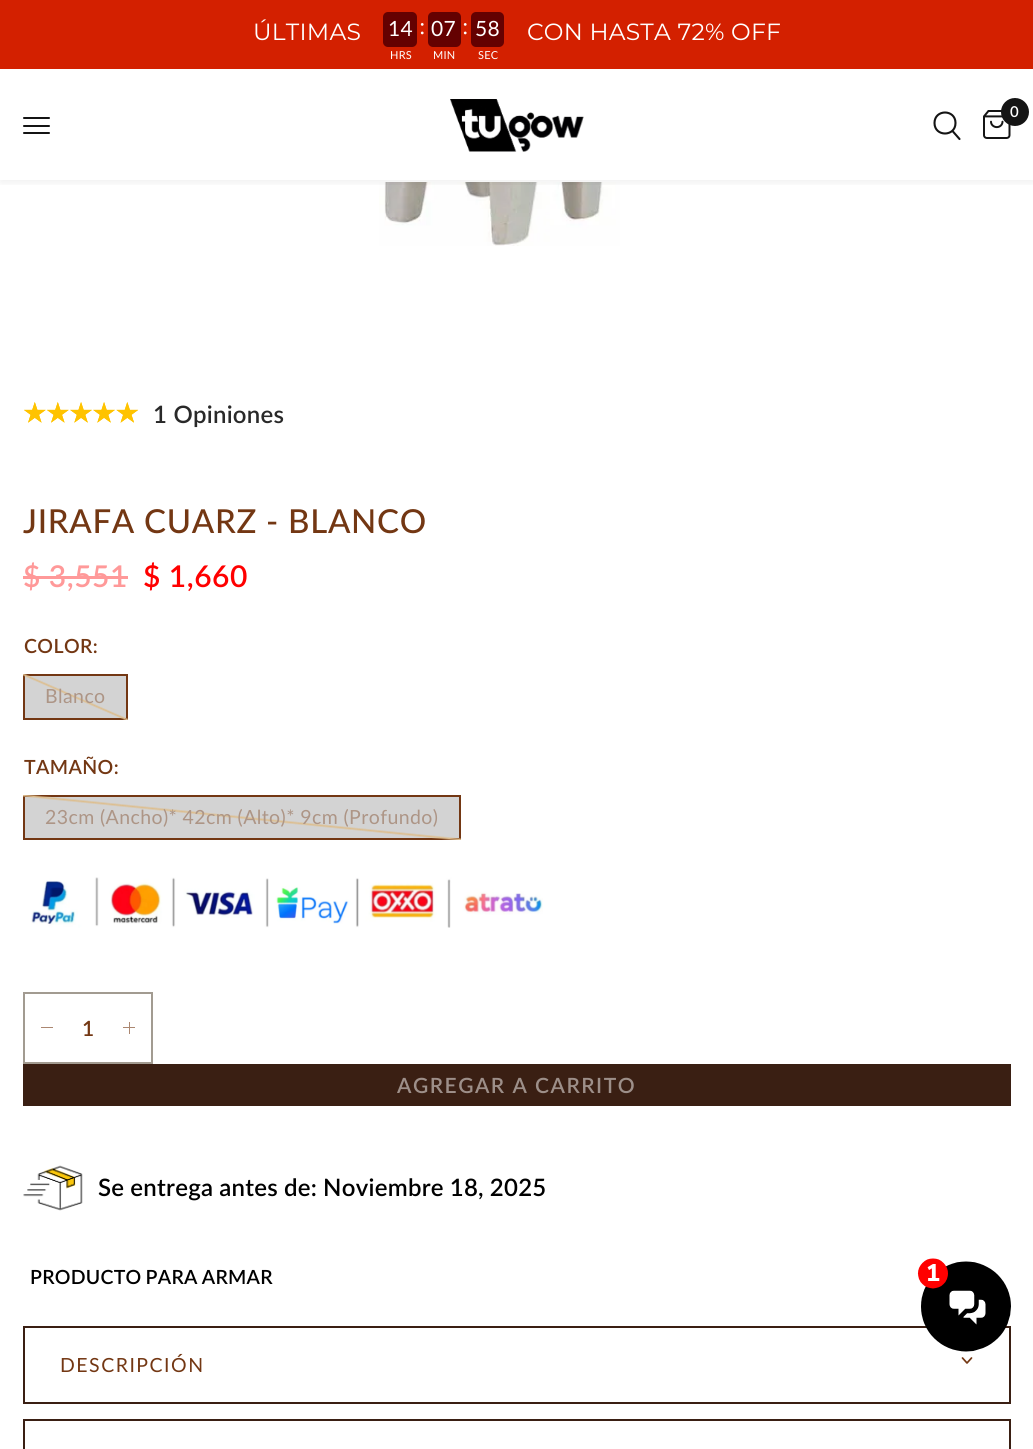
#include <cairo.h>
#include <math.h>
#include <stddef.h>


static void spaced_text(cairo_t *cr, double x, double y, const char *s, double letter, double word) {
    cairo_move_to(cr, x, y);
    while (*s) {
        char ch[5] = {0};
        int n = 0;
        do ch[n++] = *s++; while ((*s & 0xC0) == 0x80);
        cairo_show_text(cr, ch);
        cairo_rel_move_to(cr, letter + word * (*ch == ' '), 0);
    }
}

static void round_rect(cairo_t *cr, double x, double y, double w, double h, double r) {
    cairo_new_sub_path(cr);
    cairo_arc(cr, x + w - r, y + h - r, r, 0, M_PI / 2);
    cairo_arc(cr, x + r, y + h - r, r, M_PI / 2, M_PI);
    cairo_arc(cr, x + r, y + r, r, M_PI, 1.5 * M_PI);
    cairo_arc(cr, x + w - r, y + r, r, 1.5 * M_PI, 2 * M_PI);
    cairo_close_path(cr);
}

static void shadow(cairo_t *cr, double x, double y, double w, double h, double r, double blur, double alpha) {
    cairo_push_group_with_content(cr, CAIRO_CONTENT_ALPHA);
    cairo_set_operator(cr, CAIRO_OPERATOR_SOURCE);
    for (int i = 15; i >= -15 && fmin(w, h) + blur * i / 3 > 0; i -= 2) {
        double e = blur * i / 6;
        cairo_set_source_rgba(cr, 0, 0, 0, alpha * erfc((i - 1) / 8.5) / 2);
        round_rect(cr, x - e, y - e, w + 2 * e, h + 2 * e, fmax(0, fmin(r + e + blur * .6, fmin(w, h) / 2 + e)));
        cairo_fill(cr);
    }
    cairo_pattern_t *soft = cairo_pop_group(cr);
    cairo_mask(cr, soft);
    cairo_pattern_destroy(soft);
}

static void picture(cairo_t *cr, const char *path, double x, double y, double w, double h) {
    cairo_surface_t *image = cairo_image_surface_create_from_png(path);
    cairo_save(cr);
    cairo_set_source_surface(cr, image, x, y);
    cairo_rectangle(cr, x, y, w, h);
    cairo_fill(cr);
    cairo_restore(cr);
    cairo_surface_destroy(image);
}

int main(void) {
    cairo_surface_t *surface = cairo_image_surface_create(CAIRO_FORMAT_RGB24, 1033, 1449);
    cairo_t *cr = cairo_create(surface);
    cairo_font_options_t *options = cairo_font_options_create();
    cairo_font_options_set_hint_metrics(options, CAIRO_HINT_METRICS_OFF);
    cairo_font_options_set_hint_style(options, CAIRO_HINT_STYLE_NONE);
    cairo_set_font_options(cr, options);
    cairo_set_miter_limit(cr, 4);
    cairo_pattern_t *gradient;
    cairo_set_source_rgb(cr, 1, 1, 1);
    cairo_paint(cr);
    picture(cr, "img3.png", 379, 182, 241, 64);
    cairo_save(cr);
    cairo_rectangle(cr, 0, 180, 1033, 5);
    cairo_clip(cr);
    cairo_set_source_rgb(cr, 0, 0, 0);
    shadow(cr, 0, 3, 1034, 180, 0, 4, 0.06);
    cairo_restore(cr);
    cairo_set_source_rgb(cr, 0.827, 0.125, 0);
    cairo_rectangle(cr, 0, 0, 1033, 69);
    cairo_fill(cr);
    cairo_select_font_face(cr, "Montserrat Thin", CAIRO_FONT_SLANT_NORMAL, CAIRO_FONT_WEIGHT_NORMAL);
    cairo_set_font_size(cr, 23.4);
    cairo_set_source_rgb(cr, 1, 1, 1);
    spaced_text(cr, 253, 40, "ÚLTIMAS", 0.25, 0);
    cairo_set_source_rgb(cr, 0.392, 0.004, 0.004);
    round_rect(cr, 383, 12, 34, 35, 5);
    cairo_fill(cr);
    cairo_select_font_face(cr, "Lato", CAIRO_FONT_SLANT_NORMAL, CAIRO_FONT_WEIGHT_NORMAL);
    cairo_set_font_size(cr, 21);
    cairo_set_source_rgb(cr, 1, 1, 1);
    spaced_text(cr, 388, 36, "14", 0.25, 0);
    cairo_select_font_face(cr, "Liberation Serif", CAIRO_FONT_SLANT_NORMAL, CAIRO_FONT_WEIGHT_NORMAL);
    cairo_set_font_size(cr, 23.4);
    spaced_text(cr, 419, 34, ":", 0.25, 0);
    cairo_set_source_rgb(cr, 0.392, 0.004, 0.004);
    round_rect(cr, 428, 12, 33, 35, 5);
    cairo_fill(cr);
    cairo_select_font_face(cr, "Lato", CAIRO_FONT_SLANT_NORMAL, CAIRO_FONT_WEIGHT_NORMAL);
    cairo_set_font_size(cr, 21);
    cairo_set_source_rgb(cr, 1, 1, 1);
    spaced_text(cr, 431, 36, "07", 0.25, 0);
    cairo_select_font_face(cr, "Liberation Serif", CAIRO_FONT_SLANT_NORMAL, CAIRO_FONT_WEIGHT_NORMAL);
    cairo_set_font_size(cr, 23.4);
    spaced_text(cr, 462, 34, ":", 0.25, 0);
    cairo_set_source_rgb(cr, 0.392, 0.004, 0.004);
    round_rect(cr, 471, 12, 33, 35, 5);
    cairo_fill(cr);
    cairo_select_font_face(cr, "Lato", CAIRO_FONT_SLANT_NORMAL, CAIRO_FONT_WEIGHT_NORMAL);
    cairo_set_font_size(cr, 21);
    cairo_set_source_rgb(cr, 1, 1, 1);
    spaced_text(cr, 475, 36, "58", 0.25, 0);
    cairo_set_font_size(cr, 11);
    spaced_text(cr, 390, 59, "HRS", 0.25, 0);
    spaced_text(cr, 433, 59, "MIN", 0.25, 0);
    spaced_text(cr, 478, 59, "SEC", 0.25, 0);
    cairo_select_font_face(cr, "Montserrat Thin", CAIRO_FONT_SLANT_NORMAL, CAIRO_FONT_WEIGHT_NORMAL);
    cairo_set_font_size(cr, 23.4);
    spaced_text(cr, 527, 40, "CON HASTA 72% OFF", 0.25, 0);
    picture(cr, "img1.png", 450, 99, 134, 53);
    cairo_new_path(cr);
    cairo_move_to(cr, 952.5, 131);
    cairo_line_to(cr, 959.5, 139);
    cairo_move_to(cr, 955.5, 123);
    cairo_curve_to(cr, 955.5, 137, 934.5, 137, 934.5, 123);
    cairo_curve_to(cr, 934.5, 109, 955.5, 109, 955.5, 123);
    cairo_close_path(cr);
    cairo_set_source_rgb(cr, 0.082, 0.082, 0.082);
    cairo_set_line_width(cr, 2.1);
    cairo_set_line_cap(cr, CAIRO_LINE_CAP_ROUND);
    cairo_set_line_join(cr, CAIRO_LINE_JOIN_ROUND);
    cairo_stroke(cr);
    picture(cr, "img2.png", 983, 110, 28, 29);
    cairo_arc(cr, 1015, 112, 14, 0, 2 * M_PI);
    cairo_fill(cr);
    cairo_select_font_face(cr, "Lato SemiBold", CAIRO_FONT_SLANT_NORMAL, CAIRO_FONT_WEIGHT_NORMAL);
    cairo_set_font_size(cr, 15);
    cairo_set_source_rgb(cr, 1, 1, 1);
    spaced_text(cr, 1010, 117, "0", 0.25, 0);
    cairo_set_source_rgb(cr, 0.082, 0.082, 0.082);
    round_rect(cr, 23, 117, 27, 2, 1);
    cairo_fill(cr);
    round_rect(cr, 23, 125, 27, 2, 1);
    cairo_fill(cr);
    round_rect(cr, 23, 132, 27, 2, 1);
    cairo_fill(cr);
    cairo_select_font_face(cr, "DejaVu Sans", CAIRO_FONT_SLANT_NORMAL, CAIRO_FONT_WEIGHT_BOLD);
    cairo_set_font_size(cr, 25.5);
    cairo_set_source_rgb(cr, 1, 0.765, 0);
    spaced_text(cr, 23, 422, "☆☆☆☆☆", 0.25, 0);
    spaced_text(cr, 23, 422, "★★★★★", 0.25, 0);
    cairo_select_font_face(cr, "Lato SemiBold", CAIRO_FONT_SLANT_NORMAL, CAIRO_FONT_WEIGHT_NORMAL);
    cairo_set_font_size(cr, 24);
    cairo_set_source_rgb(cr, 0.161, 0.161, 0.161);
    spaced_text(cr, 153, 423, "1 Opiniones", 0.25, 0);
    cairo_select_font_face(cr, "Lato Medium", CAIRO_FONT_SLANT_NORMAL, CAIRO_FONT_WEIGHT_NORMAL);
    cairo_set_font_size(cr, 33);
    cairo_set_source_rgb(cr, 0.451, 0.216, 0.075);
    spaced_text(cr, 23, 533, "JIRAFA CUARZ - BLANCO", 0.7, 0);
    cairo_select_font_face(cr, "Lato SemiBold", CAIRO_FONT_SLANT_NORMAL, CAIRO_FONT_WEIGHT_NORMAL);
    cairo_set_font_size(cr, 30);
    cairo_set_source_rgb(cr, 1, 0.6, 0.6);
    spaced_text(cr, 23, 587, "$ 3,551", 0.5, 0);
    cairo_rectangle(cr, 23, 576, 105, 3);
    cairo_fill(cr);
    cairo_set_source_rgb(cr, 1, 0, 0);
    spaced_text(cr, 143, 587, "$ 1,660", 0.5, 0);
    cairo_set_font_size(cr, 19.5);
    cairo_set_source_rgb(cr, 0.451, 0.216, 0.075);
    spaced_text(cr, 24, 653, "COLOR:", 0.4, 0);
    cairo_set_source_rgb(cr, 0.827, 0.827, 0.827);
    cairo_rectangle(cr, 24, 675, 103, 44);
    cairo_fill_preserve(cr);
    cairo_set_source_rgb(cr, 0.451, 0.216, 0.075);
    cairo_set_line_width(cr, 2);
    cairo_set_line_cap(cr, CAIRO_LINE_CAP_BUTT);
    cairo_set_line_join(cr, CAIRO_LINE_JOIN_MITER);
    cairo_stroke(cr);
    gradient = cairo_pattern_create_linear(92, 658, 58, 736);
    cairo_pattern_add_color_stop_rgba(gradient, 0.48, 0.867, 0.745, 0.557, 0);
    cairo_pattern_add_color_stop_rgba(gradient, 0.5, 0.867, 0.745, 0.557, 1);
    cairo_pattern_add_color_stop_rgba(gradient, 0.52, 0.867, 0.745, 0.557, 0);
    cairo_set_source(cr, gradient);
    cairo_pattern_destroy(gradient);
    cairo_rectangle(cr, 23, 674, 105, 46);
    cairo_fill(cr);
    cairo_select_font_face(cr, "Lato", CAIRO_FONT_SLANT_NORMAL, CAIRO_FONT_WEIGHT_NORMAL);
    cairo_set_source_rgb(cr, 0.678, 0.584, 0.525);
    spaced_text(cr, 45, 703, "Blanco", 0.4, 0);
    cairo_select_font_face(cr, "Lato SemiBold", CAIRO_FONT_SLANT_NORMAL, CAIRO_FONT_WEIGHT_NORMAL);
    cairo_set_source_rgb(cr, 0.451, 0.216, 0.075);
    spaced_text(cr, 24, 774, "TAMAÑO:", 0.4, 0);
    cairo_set_source_rgb(cr, 0.827, 0.827, 0.827);
    cairo_rectangle(cr, 24, 796, 436, 43);
    cairo_fill_preserve(cr);
    cairo_set_source_rgb(cr, 0.451, 0.216, 0.075);
    cairo_stroke(cr);
    gradient = cairo_pattern_create_linear(246, 773, 237, 862);
    cairo_pattern_add_color_stop_rgba(gradient, 0.48, 0.867, 0.745, 0.557, 0);
    cairo_pattern_add_color_stop_rgba(gradient, 0.5, 0.867, 0.745, 0.557, 1);
    cairo_pattern_add_color_stop_rgba(gradient, 0.52, 0.867, 0.745, 0.557, 0);
    cairo_set_source(cr, gradient);
    cairo_pattern_destroy(gradient);
    cairo_rectangle(cr, 23, 795, 438, 45);
    cairo_fill(cr);
    cairo_select_font_face(cr, "Lato", CAIRO_FONT_SLANT_NORMAL, CAIRO_FONT_WEIGHT_NORMAL);
    cairo_set_source_rgb(cr, 0.678, 0.584, 0.525);
    spaced_text(cr, 45, 824, "23cm (Ancho)* 42cm (Alto)* 9cm (Profundo)", 0.4, 0);
    picture(cr, "img4.png", 31, 877, 512, 51);
    cairo_rectangle(cr, 24, 993, 128, 70);
    cairo_set_source_rgb(cr, 0.635, 0.608, 0.569);
    cairo_stroke(cr);
    cairo_set_source_rgb(cr, 0.671, 0.529, 0.443);
    cairo_rectangle(cr, 41, 1027, 12, 1);
    cairo_fill(cr);
    cairo_select_font_face(cr, "Lato SemiBold", CAIRO_FONT_SLANT_NORMAL, CAIRO_FONT_WEIGHT_NORMAL);
    cairo_set_font_size(cr, 21);
    cairo_set_source_rgb(cr, 0.451, 0.216, 0.075);
    cairo_move_to(cr, 82, 1036);
    cairo_show_text(cr, "1");
    cairo_set_source_rgb(cr, 0.671, 0.529, 0.443);
    cairo_rectangle(cr, 129, 1022, 1, 12);
    cairo_fill(cr);
    cairo_rectangle(cr, 123, 1027, 12, 1);
    cairo_fill(cr);
    cairo_set_source_rgb(cr, 0.227, 0.122, 0.075);
    cairo_rectangle(cr, 23, 1064, 988, 42);
    cairo_fill(cr);
    cairo_set_source_rgb(cr, 0.616, 0.561, 0.537);
    spaced_text(cr, 397, 1093, "AGREGAR A CARRITO", 1.5, 0);
    cairo_save(cr);
    cairo_rectangle(cr, 503, 1070, 30, 30);
    cairo_clip(cr);
    cairo_new_path(cr);
    cairo_move_to(cr, 517.5, 1071);
    cairo_curve_to(cr, 535.5, 1071, 535.5, 1098, 517.5, 1098);
    cairo_curve_to(cr, 499.5, 1098, 499.5, 1071, 517.5, 1071);
    cairo_set_source_rgb(cr, 0.227, 0.122, 0.075);
    cairo_set_line_width(cr, 2.7);
    cairo_stroke(cr);
    cairo_restore(cr);
    picture(cr, "img5.png", 23, 1165, 60, 46);
    cairo_set_font_size(cr, 24);
    cairo_set_source_rgb(cr, 0, 0, 0);
    spaced_text(cr, 98, 1196, "Se entrega antes de: Noviembre 18, 2025", 0.25, -0.25);
    cairo_set_font_size(cr, 19.5);
    spaced_text(cr, 30, 1284, "PRODUCTO PARA ARMAR", 0.25, -1);
    cairo_rectangle(cr, 24, 1327, 986, 76);
    cairo_set_source_rgb(cr, 0.227, 0.122, 0.075);
    cairo_stroke(cr);
    cairo_select_font_face(cr, "Lato", CAIRO_FONT_SLANT_NORMAL, CAIRO_FONT_WEIGHT_NORMAL);
    cairo_set_source_rgb(cr, 0.451, 0.216, 0.075);
    spaced_text(cr, 60, 1372, "DESCRIPCIÓN", 1.5, 0);
    cairo_new_path(cr);
    cairo_move_to(cr, 971.5, 1358);
    cairo_line_to(cr, 967, 1363);
    cairo_line_to(cr, 962.5, 1358);
    cairo_set_line_width(cr, 1.7);
    cairo_set_line_cap(cr, CAIRO_LINE_CAP_ROUND);
    cairo_set_line_join(cr, CAIRO_LINE_JOIN_ROUND);
    cairo_stroke(cr);
    cairo_rectangle(cr, 24, 1420, 986, 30);
    cairo_set_source_rgb(cr, 0.227, 0.122, 0.075);
    cairo_set_line_width(cr, 2);
    cairo_set_line_cap(cr, CAIRO_LINE_CAP_BUTT);
    cairo_set_line_join(cr, CAIRO_LINE_JOIN_MITER);
    cairo_stroke(cr);
    picture(cr, "img6.png", 917, 1258, 94, 94);
    cairo_surface_write_to_png(surface, "page.png");
    cairo_font_options_destroy(options);
    cairo_destroy(cr);
    cairo_surface_destroy(surface);
    return 0;
}
